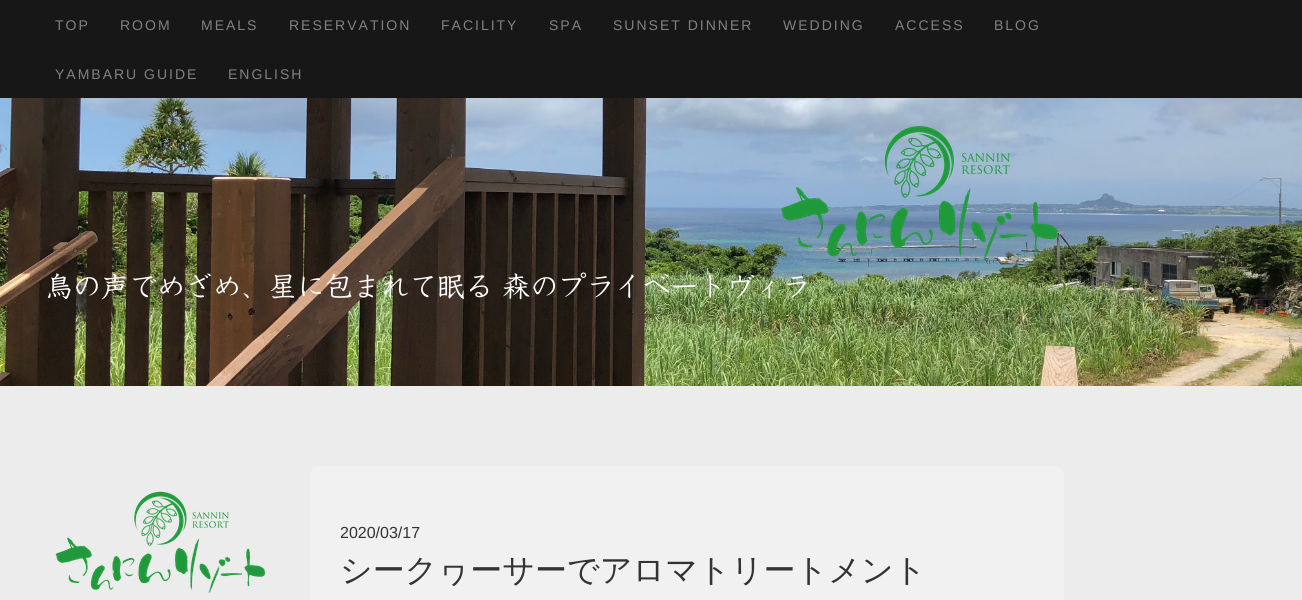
#include <cairo.h>
#include <math.h>
#include <stddef.h>


static void spaced_text(cairo_t *cr, double x, double y, const char *s, double letter, double word) {
    cairo_move_to(cr, x, y);
    while (*s) {
        char ch[5] = {0};
        int n = 0;
        do ch[n++] = *s++; while ((*s & 0xC0) == 0x80);
        cairo_show_text(cr, ch);
        cairo_rel_move_to(cr, letter + word * (*ch == ' '), 0);
    }
}

static void round_rect(cairo_t *cr, double x, double y, double w, double h, double r) {
    cairo_new_sub_path(cr);
    cairo_arc(cr, x + w - r, y + h - r, r, 0, M_PI / 2);
    cairo_arc(cr, x + r, y + h - r, r, M_PI / 2, M_PI);
    cairo_arc(cr, x + r, y + r, r, M_PI, 1.5 * M_PI);
    cairo_arc(cr, x + w - r, y + r, r, 1.5 * M_PI, 2 * M_PI);
    cairo_close_path(cr);
}

static void picture(cairo_t *cr, const char *path, double x, double y, double w, double h) {
    cairo_surface_t *image = cairo_image_surface_create_from_png(path);
    cairo_save(cr);
    cairo_set_source_surface(cr, image, x, y);
    cairo_rectangle(cr, x, y, w, h);
    cairo_fill(cr);
    cairo_restore(cr);
    cairo_surface_destroy(image);
}

int main(void) {
    cairo_surface_t *surface = cairo_image_surface_create(CAIRO_FORMAT_RGB24, 1302, 600);
    cairo_t *cr = cairo_create(surface);
    cairo_font_options_t *options = cairo_font_options_create();
    cairo_font_options_set_hint_metrics(options, CAIRO_HINT_METRICS_OFF);
    cairo_font_options_set_hint_style(options, CAIRO_HINT_STYLE_NONE);
    cairo_set_font_options(cr, options);
    cairo_set_miter_limit(cr, 4);
    cairo_set_source_rgb(cr, 0.922, 0.922, 0.922);
    cairo_paint(cr);
    cairo_set_source_rgb(cr, 0.09, 0.09, 0.09);
    cairo_rectangle(cr, 0, 0, 1302, 98);
    cairo_fill(cr);
    cairo_select_font_face(cr, "Arimo", CAIRO_FONT_SLANT_NORMAL, CAIRO_FONT_WEIGHT_NORMAL);
    cairo_set_font_size(cr, 14);
    cairo_set_source_rgb(cr, 0.506, 0.506, 0.494);
    spaced_text(cr, 55, 30, "TOP", 2, 0);
    spaced_text(cr, 120, 30, "ROOM", 2, 0);
    spaced_text(cr, 201, 30, "MEALS", 2, 0);
    spaced_text(cr, 289, 30, "RESERVATION", 2, 0);
    spaced_text(cr, 441, 30, "FACILITY", 2, 0);
    spaced_text(cr, 549, 30, "SPA", 2, 0);
    spaced_text(cr, 613, 30, "SUNSET DINNER", 2, 0);
    spaced_text(cr, 783, 30, "WEDDING", 2, 0);
    spaced_text(cr, 895, 30, "ACCESS", 2, 0);
    spaced_text(cr, 994, 30, "BLOG", 2, 0);
    spaced_text(cr, 55, 79, "YAMBARU GUIDE", 2, 0);
    spaced_text(cr, 228, 79, "ENGLISH", 2, 0);
    picture(cr, "img1.png", 0, 98, 1302, 288);
    picture(cr, "img2.png", 781, 126, 277, 135);
    cairo_select_font_face(cr, "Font", CAIRO_FONT_SLANT_NORMAL, CAIRO_FONT_WEIGHT_NORMAL);
    cairo_set_font_size(cr, 28);
    cairo_set_source_rgb(cr, 1, 1, 1);
    cairo_move_to(cr, 45, 297);
    cairo_show_text(cr, "鳥の声でめざめ、星に包まれて眠る 森のプライベートヴィラ");
    picture(cr, "img3.png", 55, 491, 211, 103);
    cairo_set_source_rgb(cr, 0.945, 0.945, 0.945);
    round_rect(cr, 310, 466, 754, 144, 10);
    cairo_fill(cr);
    cairo_select_font_face(cr, "Arimo", CAIRO_FONT_SLANT_NORMAL, CAIRO_FONT_WEIGHT_NORMAL);
    cairo_set_font_size(cr, 16);
    cairo_set_source_rgb(cr, 0.2, 0.2, 0.196);
    cairo_move_to(cr, 340, 538);
    cairo_show_text(cr, "2020/03/17");
    cairo_select_font_face(cr, "WenQuanYi Zen Hei Medium", CAIRO_FONT_SLANT_NORMAL, CAIRO_FONT_WEIGHT_NORMAL);
    cairo_set_font_size(cr, 32);
    cairo_move_to(cr, 340, 581);
    cairo_show_text(cr, "シークヮーサーでアロマトリートメント");
    cairo_surface_write_to_png(surface, "page.png");
    cairo_font_options_destroy(options);
    cairo_destroy(cr);
    cairo_surface_destroy(surface);
    return 0;
}
